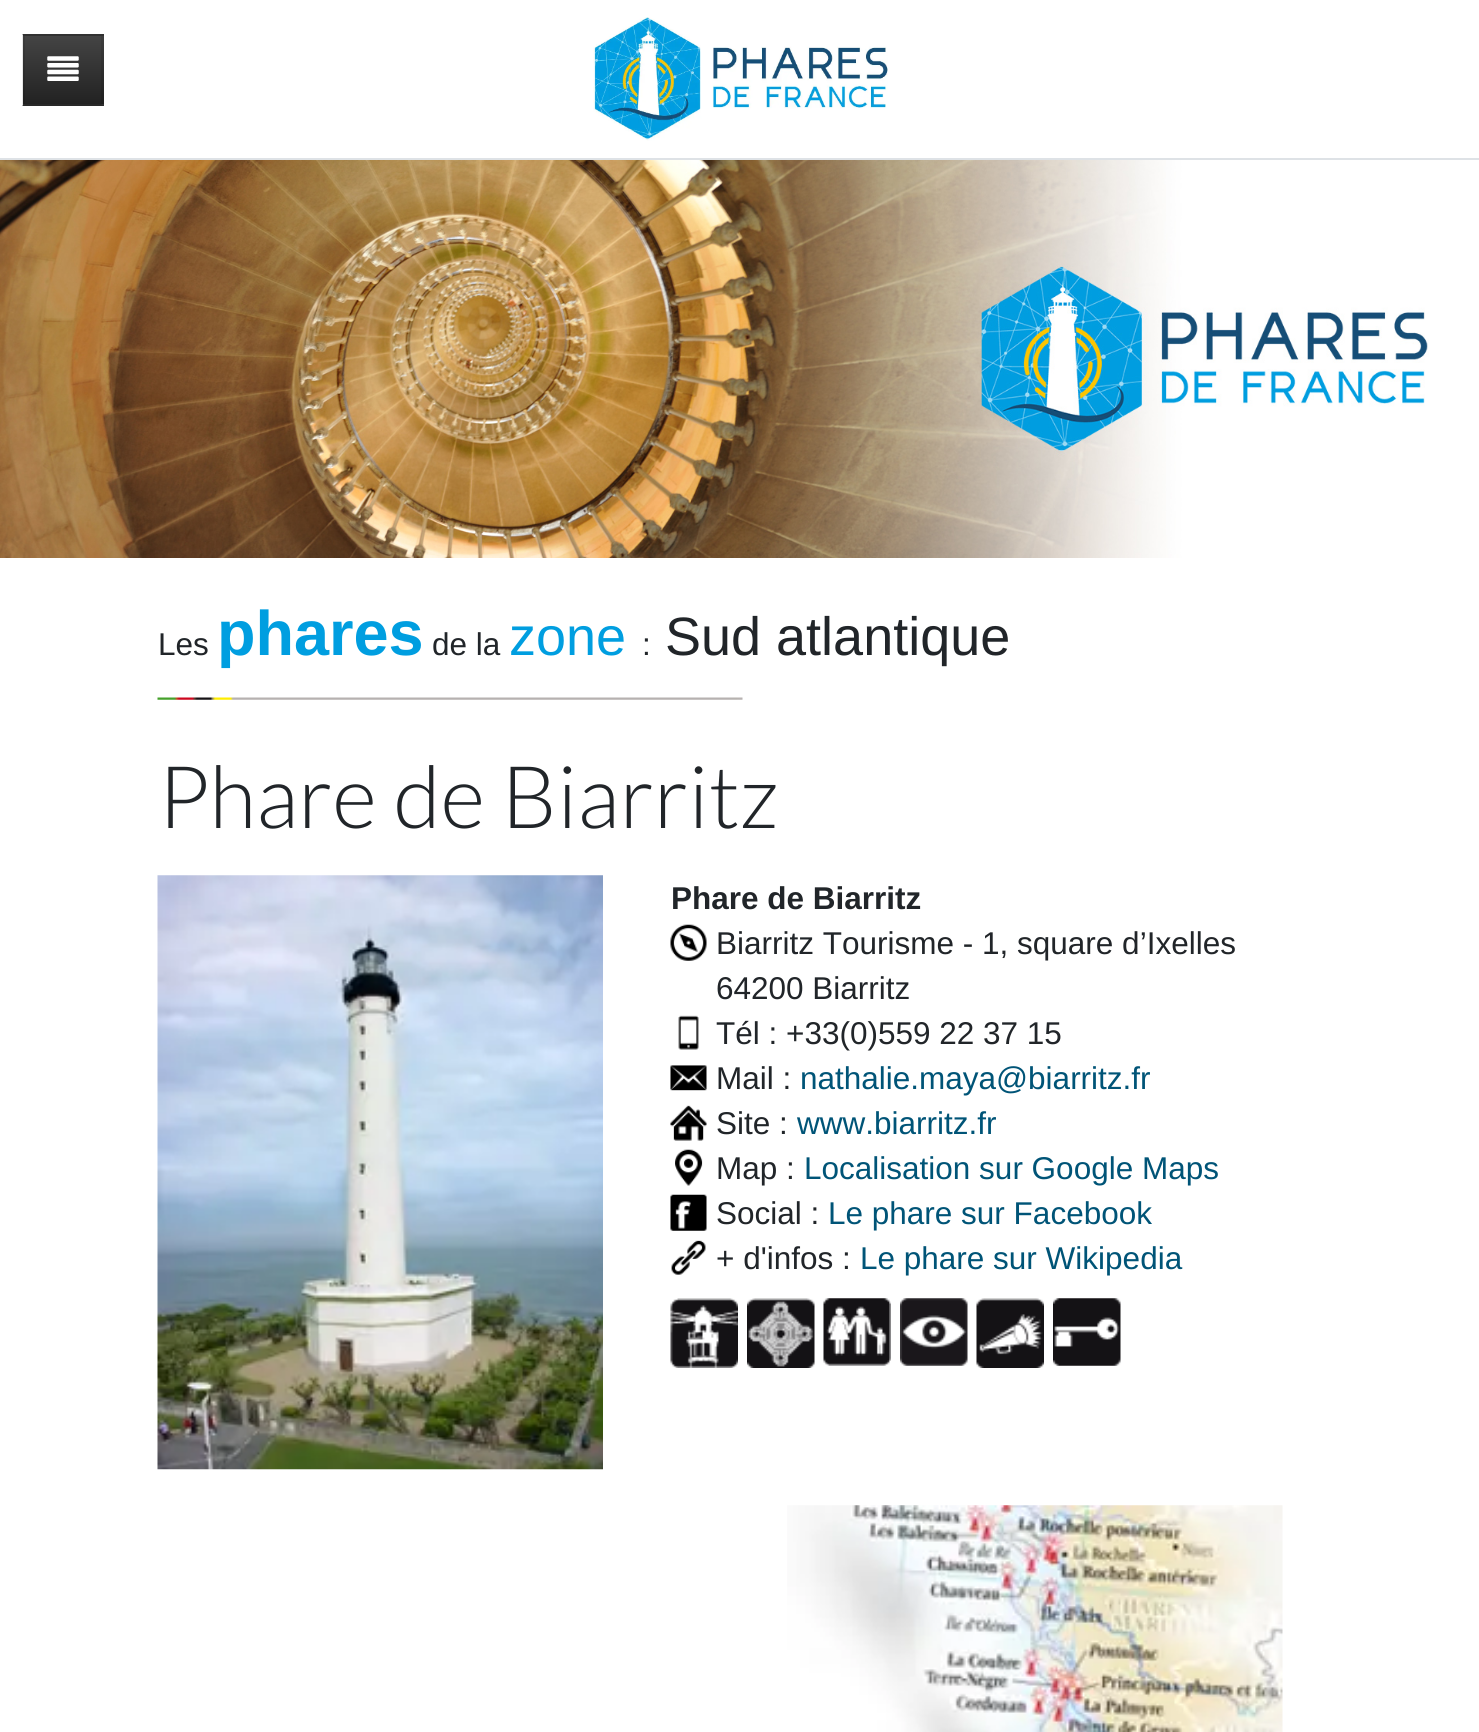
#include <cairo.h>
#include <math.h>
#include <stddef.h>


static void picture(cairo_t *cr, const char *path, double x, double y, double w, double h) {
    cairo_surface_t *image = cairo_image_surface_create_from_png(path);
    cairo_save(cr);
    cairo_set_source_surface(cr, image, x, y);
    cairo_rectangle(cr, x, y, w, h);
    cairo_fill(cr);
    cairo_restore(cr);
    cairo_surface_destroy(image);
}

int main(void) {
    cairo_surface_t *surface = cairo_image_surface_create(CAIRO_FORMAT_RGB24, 1479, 1732);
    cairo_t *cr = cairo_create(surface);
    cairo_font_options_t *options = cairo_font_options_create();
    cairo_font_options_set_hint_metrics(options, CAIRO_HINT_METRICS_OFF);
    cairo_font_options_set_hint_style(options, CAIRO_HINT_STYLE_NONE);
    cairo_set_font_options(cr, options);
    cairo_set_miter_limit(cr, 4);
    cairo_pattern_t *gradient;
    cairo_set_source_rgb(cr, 1, 1, 1);
    cairo_paint(cr);
    cairo_set_source_rgb(cr, 0.871, 0.886, 0.902);
    cairo_rectangle(cr, 0, 158, 1479, 2);
    cairo_fill(cr);
    cairo_set_source_rgb(cr, 0.212, 0.212, 0.212);
    cairo_rectangle(cr, 23, 34, 81, 72);
    cairo_fill(cr);
    gradient = cairo_pattern_create_linear(63, 36, 63, 104);
    cairo_pattern_add_color_stop_rgba(gradient, 0, 0.267, 0.267, 0.267, 1);
    cairo_pattern_add_color_stop_rgba(gradient, 1, 0.133, 0.133, 0.133, 1);
    cairo_set_source(cr, gradient);
    cairo_pattern_destroy(gradient);
    cairo_rectangle(cr, 23, 36, 81, 68);
    cairo_fill(cr);
    cairo_set_source_rgb(cr, 0.192, 0.192, 0.192);
    cairo_new_path(cr);
    cairo_move_to(cr, 22, 34);
    cairo_line_to(cr, 104, 34);
    cairo_line_to(cr, 101, 36);
    cairo_line_to(cr, 25, 36);
    cairo_close_path(cr);
    cairo_fill(cr);
    cairo_set_source_rgba(cr, 0, 0, 0, 0.1);
    cairo_new_path(cr);
    cairo_move_to(cr, 104, 34);
    cairo_line_to(cr, 104, 106);
    cairo_line_to(cr, 101, 104);
    cairo_line_to(cr, 101, 36);
    cairo_close_path(cr);
    cairo_fill(cr);
    cairo_set_source_rgb(cr, 0.157, 0.157, 0.157);
    cairo_new_path(cr);
    cairo_move_to(cr, 104, 106);
    cairo_line_to(cr, 22, 106);
    cairo_line_to(cr, 25, 104);
    cairo_line_to(cr, 101, 104);
    cairo_close_path(cr);
    cairo_fill(cr);
    cairo_set_source_rgba(cr, 0, 0, 0, 0.1);
    cairo_new_path(cr);
    cairo_move_to(cr, 22, 106);
    cairo_line_to(cr, 22, 34);
    cairo_line_to(cr, 25, 36);
    cairo_line_to(cr, 25, 104);
    cairo_close_path(cr);
    cairo_fill(cr);
    picture(cr, "img1.png", 47, 56, 32, 25);
    picture(cr, "img2.png", 593, 17, 295, 124);
    picture(cr, "img3.png", 0, 160, 1429, 398);
    picture(cr, "img4.png", 157, 697, 586, 3);
    cairo_select_font_face(cr, "Liberation Sans", CAIRO_FONT_SLANT_NORMAL, CAIRO_FONT_WEIGHT_NORMAL);
    cairo_set_font_size(cr, 31.5);
    cairo_set_source_rgb(cr, 0.129, 0.145, 0.161);
    cairo_move_to(cr, 158, 655);
    cairo_show_text(cr, "Les");
    cairo_select_font_face(cr, "Liberation Sans", CAIRO_FONT_SLANT_NORMAL, CAIRO_FONT_WEIGHT_BOLD);
    cairo_set_font_size(cr, 63);
    cairo_set_source_rgb(cr, 0, 0.62, 0.878);
    cairo_move_to(cr, 217, 655);
    cairo_show_text(cr, "phares");
    cairo_select_font_face(cr, "Liberation Sans", CAIRO_FONT_SLANT_NORMAL, CAIRO_FONT_WEIGHT_NORMAL);
    cairo_set_font_size(cr, 31.5);
    cairo_set_source_rgb(cr, 0.129, 0.145, 0.161);
    cairo_move_to(cr, 432, 655);
    cairo_show_text(cr, "de la");
    cairo_set_font_size(cr, 54);
    cairo_set_source_rgb(cr, 0, 0.62, 0.878);
    cairo_move_to(cr, 509, 655);
    cairo_show_text(cr, "zone");
    cairo_set_font_size(cr, 31.5);
    cairo_set_source_rgb(cr, 0.129, 0.145, 0.161);
    cairo_move_to(cr, 642, 655);
    cairo_show_text(cr, ":");
    cairo_set_font_size(cr, 54);
    cairo_move_to(cr, 665, 655);
    cairo_show_text(cr, "Sud atlantique");
    cairo_select_font_face(cr, "Lato Light", CAIRO_FONT_SLANT_NORMAL, CAIRO_FONT_WEIGHT_NORMAL);
    cairo_set_font_size(cr, 86.5);
    cairo_move_to(cr, 158, 828);
    cairo_show_text(cr, "Phare de Biarritz");
    picture(cr, "img5.png", 157, 875, 446, 595);
    cairo_select_font_face(cr, "Liberation Sans", CAIRO_FONT_SLANT_NORMAL, CAIRO_FONT_WEIGHT_BOLD);
    cairo_set_font_size(cr, 31.5);
    cairo_move_to(cr, 671, 909);
    cairo_show_text(cr, "Phare de Biarritz");
    picture(cr, "img6.png", 670, 924, 37, 37);
    cairo_select_font_face(cr, "Liberation Sans", CAIRO_FONT_SLANT_NORMAL, CAIRO_FONT_WEIGHT_NORMAL);
    cairo_move_to(cr, 716, 954);
    cairo_show_text(cr, "Biarritz Tourisme - 1, square d’Ixelles");
    cairo_move_to(cr, 716, 999);
    cairo_show_text(cr, "64200 Biarritz");
    picture(cr, "img7.png", 678, 1015, 21, 35);
    cairo_move_to(cr, 716, 1044);
    cairo_show_text(cr, "Tél : +33(0)559 22 37 15");
    picture(cr, "img8.png", 670, 1065, 37, 26);
    cairo_move_to(cr, 716, 1089);
    cairo_show_text(cr, "Mail :");
    cairo_set_source_rgb(cr, 0, 0.329, 0.467);
    cairo_move_to(cr, 800, 1089);
    cairo_show_text(cr, "nathalie.maya@biarritz.fr");
    picture(cr, "img9.png", 670, 1105, 37, 36);
    cairo_set_source_rgb(cr, 0.129, 0.145, 0.161);
    cairo_move_to(cr, 716, 1134);
    cairo_show_text(cr, "Site :");
    cairo_set_source_rgb(cr, 0, 0.329, 0.467);
    cairo_move_to(cr, 797, 1134);
    cairo_show_text(cr, "www.biarritz.fr");
    picture(cr, "img10.png", 675, 1149, 28, 37);
    cairo_set_source_rgb(cr, 0.129, 0.145, 0.161);
    cairo_move_to(cr, 716, 1179);
    cairo_show_text(cr, "Map :");
    cairo_set_source_rgb(cr, 0, 0.329, 0.467);
    cairo_move_to(cr, 804, 1179);
    cairo_show_text(cr, "Localisation sur Google Maps");
    picture(cr, "img11.png", 670, 1194, 37, 37);
    cairo_set_source_rgb(cr, 0.129, 0.145, 0.161);
    cairo_move_to(cr, 716, 1224);
    cairo_show_text(cr, "Social :");
    cairo_set_source_rgb(cr, 0, 0.329, 0.467);
    cairo_move_to(cr, 828, 1224);
    cairo_show_text(cr, "Le phare sur Facebook");
    picture(cr, "img12.png", 671, 1240, 35, 35);
    cairo_set_source_rgb(cr, 0.129, 0.145, 0.161);
    cairo_move_to(cr, 716, 1269);
    cairo_show_text(cr, "+ d'infos :");
    cairo_set_source_rgb(cr, 0, 0.329, 0.467);
    cairo_move_to(cr, 860, 1269);
    cairo_show_text(cr, "Le phare sur Wikipedia");
    picture(cr, "img13.png", 670, 1298, 68, 70);
    picture(cr, "img14.png", 747, 1298, 68, 70);
    picture(cr, "img15.png", 823, 1298, 68, 68);
    picture(cr, "img16.png", 900, 1298, 68, 68);
    picture(cr, "img17.png", 976, 1298, 68, 70);
    picture(cr, "img18.png", 1053, 1298, 68, 68);
    picture(cr, "img19.png", 787, 1505, 496, 227);
    cairo_surface_write_to_png(surface, "page.png");
    cairo_font_options_destroy(options);
    cairo_destroy(cr);
    cairo_surface_destroy(surface);
    return 0;
}
